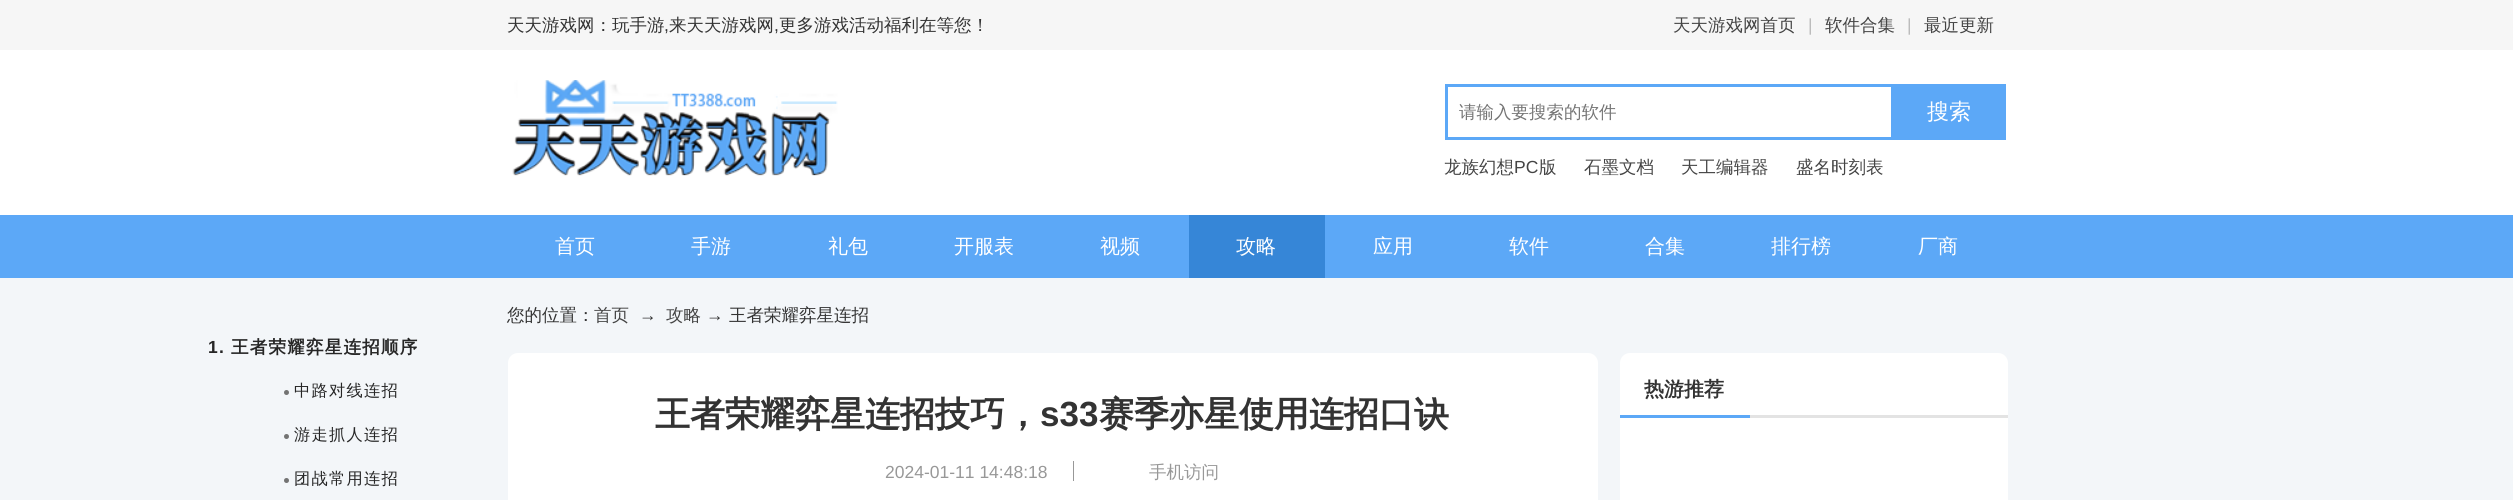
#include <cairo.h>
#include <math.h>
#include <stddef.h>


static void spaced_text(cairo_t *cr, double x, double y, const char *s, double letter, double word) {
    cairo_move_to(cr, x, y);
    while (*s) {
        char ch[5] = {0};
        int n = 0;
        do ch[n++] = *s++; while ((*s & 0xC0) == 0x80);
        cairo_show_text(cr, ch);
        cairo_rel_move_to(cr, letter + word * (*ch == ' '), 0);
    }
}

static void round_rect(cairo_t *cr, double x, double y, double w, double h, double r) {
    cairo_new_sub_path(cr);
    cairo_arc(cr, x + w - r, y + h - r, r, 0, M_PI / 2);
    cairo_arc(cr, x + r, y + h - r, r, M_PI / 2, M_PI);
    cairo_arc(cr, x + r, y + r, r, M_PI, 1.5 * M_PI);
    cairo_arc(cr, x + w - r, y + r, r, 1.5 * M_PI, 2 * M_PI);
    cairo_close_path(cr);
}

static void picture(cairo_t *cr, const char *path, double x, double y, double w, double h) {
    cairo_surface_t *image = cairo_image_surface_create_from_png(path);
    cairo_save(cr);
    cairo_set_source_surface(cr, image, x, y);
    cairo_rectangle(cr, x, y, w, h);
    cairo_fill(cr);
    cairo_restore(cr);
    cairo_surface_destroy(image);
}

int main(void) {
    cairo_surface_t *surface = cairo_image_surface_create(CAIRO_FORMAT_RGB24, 2513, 500);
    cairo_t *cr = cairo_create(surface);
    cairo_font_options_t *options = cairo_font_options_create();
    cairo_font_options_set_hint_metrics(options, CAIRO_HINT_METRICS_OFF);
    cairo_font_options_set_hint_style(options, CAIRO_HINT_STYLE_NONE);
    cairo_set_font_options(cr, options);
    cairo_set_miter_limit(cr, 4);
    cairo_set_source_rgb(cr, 0.953, 0.961, 0.976);
    cairo_paint(cr);
    cairo_set_source_rgb(cr, 0.961, 0.961, 0.961);
    cairo_rectangle(cr, 0, 0, 2513, 50);
    cairo_fill(cr);
    cairo_select_font_face(cr, "WenQuanYi Zen Hei Medium", CAIRO_FONT_SLANT_NORMAL, CAIRO_FONT_WEIGHT_NORMAL);
    cairo_set_font_size(cr, 17.5);
    cairo_set_source_rgb(cr, 0.2, 0.2, 0.2);
    cairo_move_to(cr, 507, 31);
    cairo_show_text(cr, "天天游戏网：玩手游");
    cairo_select_font_face(cr, "Liberation Sans", CAIRO_FONT_SLANT_NORMAL, CAIRO_FONT_WEIGHT_NORMAL);
    cairo_move_to(cr, 664, 31);
    cairo_show_text(cr, ",");
    cairo_select_font_face(cr, "WenQuanYi Zen Hei Medium", CAIRO_FONT_SLANT_NORMAL, CAIRO_FONT_WEIGHT_NORMAL);
    cairo_move_to(cr, 669, 31);
    cairo_show_text(cr, "来天天游戏网");
    cairo_select_font_face(cr, "Liberation Sans", CAIRO_FONT_SLANT_NORMAL, CAIRO_FONT_WEIGHT_NORMAL);
    cairo_move_to(cr, 774, 31);
    cairo_show_text(cr, ",");
    cairo_select_font_face(cr, "WenQuanYi Zen Hei Medium", CAIRO_FONT_SLANT_NORMAL, CAIRO_FONT_WEIGHT_NORMAL);
    cairo_move_to(cr, 779, 31);
    cairo_show_text(cr, "更多游戏活动福利在等您！");
    cairo_set_source_rgb(cr, 0.267, 0.267, 0.267);
    cairo_move_to(cr, 1673, 31);
    cairo_show_text(cr, "天天游戏网首页");
    cairo_select_font_face(cr, "Liberation Sans", CAIRO_FONT_SLANT_NORMAL, CAIRO_FONT_WEIGHT_NORMAL);
    cairo_set_source_rgb(cr, 0.733, 0.733, 0.733);
    cairo_move_to(cr, 1808, 31);
    cairo_show_text(cr, "|");
    cairo_select_font_face(cr, "WenQuanYi Zen Hei Medium", CAIRO_FONT_SLANT_NORMAL, CAIRO_FONT_WEIGHT_NORMAL);
    cairo_set_source_rgb(cr, 0.267, 0.267, 0.267);
    cairo_move_to(cr, 1825, 31);
    cairo_show_text(cr, "软件合集");
    cairo_select_font_face(cr, "Liberation Sans", CAIRO_FONT_SLANT_NORMAL, CAIRO_FONT_WEIGHT_NORMAL);
    cairo_set_source_rgb(cr, 0.733, 0.733, 0.733);
    cairo_move_to(cr, 1907, 31);
    cairo_show_text(cr, "|");
    cairo_select_font_face(cr, "WenQuanYi Zen Hei Medium", CAIRO_FONT_SLANT_NORMAL, CAIRO_FONT_WEIGHT_NORMAL);
    cairo_set_source_rgb(cr, 0.267, 0.267, 0.267);
    cairo_move_to(cr, 1924, 31);
    cairo_show_text(cr, "最近更新");
    cairo_set_source_rgb(cr, 1, 1, 1);
    cairo_rectangle(cr, 0, 50, 2513, 165);
    cairo_fill(cr);
    picture(cr, "img1.png", 512, 80, 326, 96);
    cairo_rectangle(cr, 1446.5, 85.5, 446, 53);
    cairo_set_source_rgb(cr, 0.361, 0.659, 0.965);
    cairo_set_line_width(cr, 3);
    cairo_stroke(cr);
    cairo_set_source_rgb(cr, 0.459, 0.459, 0.459);
    cairo_move_to(cr, 1459, 118);
    cairo_show_text(cr, "请输入要搜索的软件");
    cairo_set_source_rgb(cr, 0.361, 0.659, 0.965);
    cairo_rectangle(cr, 1894, 84, 112, 56);
    cairo_fill(cr);
    cairo_set_font_size(cr, 22);
    cairo_set_source_rgb(cr, 1, 1, 1);
    cairo_move_to(cr, 1927, 119);
    cairo_show_text(cr, "搜索");
    cairo_set_font_size(cr, 17.5);
    cairo_set_source_rgb(cr, 0.267, 0.267, 0.267);
    cairo_move_to(cr, 1444, 173);
    cairo_show_text(cr, "龙族幻想");
    cairo_select_font_face(cr, "Liberation Sans", CAIRO_FONT_SLANT_NORMAL, CAIRO_FONT_WEIGHT_NORMAL);
    cairo_move_to(cr, 1514, 173);
    cairo_show_text(cr, "PC");
    cairo_select_font_face(cr, "WenQuanYi Zen Hei Medium", CAIRO_FONT_SLANT_NORMAL, CAIRO_FONT_WEIGHT_NORMAL);
    cairo_move_to(cr, 1539, 173);
    cairo_show_text(cr, "版");
    cairo_move_to(cr, 1584, 173);
    cairo_show_text(cr, "石墨文档");
    cairo_move_to(cr, 1681, 173);
    cairo_show_text(cr, "天工编辑器");
    cairo_move_to(cr, 1796, 173);
    cairo_show_text(cr, "盛名时刻表");
    cairo_set_source_rgb(cr, 0.361, 0.659, 0.965);
    cairo_rectangle(cr, 0, 215, 2513, 63);
    cairo_fill(cr);
    cairo_set_font_size(cr, 20);
    cairo_set_source_rgb(cr, 1, 1, 1);
    cairo_move_to(cr, 555, 253);
    cairo_show_text(cr, "首页");
    cairo_move_to(cr, 691, 253);
    cairo_show_text(cr, "手游");
    cairo_move_to(cr, 828, 253);
    cairo_show_text(cr, "礼包");
    cairo_move_to(cr, 954, 253);
    cairo_show_text(cr, "开服表");
    cairo_move_to(cr, 1100, 253);
    cairo_show_text(cr, "视频");
    cairo_set_source_rgb(cr, 0.212, 0.525, 0.843);
    cairo_rectangle(cr, 1189, 215, 136, 63);
    cairo_fill(cr);
    cairo_set_source_rgb(cr, 1, 1, 1);
    cairo_move_to(cr, 1236, 253);
    cairo_show_text(cr, "攻略");
    cairo_move_to(cr, 1373, 253);
    cairo_show_text(cr, "应用");
    cairo_move_to(cr, 1509, 253);
    cairo_show_text(cr, "软件");
    cairo_move_to(cr, 1645, 253);
    cairo_show_text(cr, "合集");
    cairo_move_to(cr, 1771, 253);
    cairo_show_text(cr, "排行榜");
    cairo_move_to(cr, 1918, 253);
    cairo_show_text(cr, "厂商");
    cairo_set_font_size(cr, 17.5);
    cairo_set_source_rgb(cr, 0.2, 0.2, 0.2);
    cairo_move_to(cr, 507, 321);
    cairo_show_text(cr, "您的位置：");
    cairo_set_source_rgb(cr, 0.267, 0.267, 0.267);
    cairo_move_to(cr, 594, 321);
    cairo_show_text(cr, "首页");
    cairo_select_font_face(cr, "Liberation Sans", CAIRO_FONT_SLANT_NORMAL, CAIRO_FONT_WEIGHT_NORMAL);
    cairo_set_source_rgb(cr, 0.2, 0.2, 0.2);
    cairo_move_to(cr, 639, 321);
    cairo_show_text(cr, "→");
    cairo_select_font_face(cr, "WenQuanYi Zen Hei Medium", CAIRO_FONT_SLANT_NORMAL, CAIRO_FONT_WEIGHT_NORMAL);
    cairo_set_source_rgb(cr, 0.267, 0.267, 0.267);
    cairo_move_to(cr, 666, 321);
    cairo_show_text(cr, "攻略");
    cairo_select_font_face(cr, "Liberation Sans", CAIRO_FONT_SLANT_NORMAL, CAIRO_FONT_WEIGHT_NORMAL);
    cairo_set_source_rgb(cr, 0.2, 0.2, 0.2);
    cairo_move_to(cr, 706, 321);
    cairo_show_text(cr, "→");
    cairo_select_font_face(cr, "WenQuanYi Zen Hei Medium", CAIRO_FONT_SLANT_NORMAL, CAIRO_FONT_WEIGHT_NORMAL);
    cairo_move_to(cr, 729, 321);
    cairo_show_text(cr, "王者荣耀弈星连招");
    cairo_select_font_face(cr, "Liberation Sans", CAIRO_FONT_SLANT_NORMAL, CAIRO_FONT_WEIGHT_BOLD);
    cairo_set_source_rgb(cr, 0.149, 0.149, 0.149);
    spaced_text(cr, 208, 353, "1.", 1.25, 0);
    cairo_select_font_face(cr, "WenQuanYi Zen Hei", CAIRO_FONT_SLANT_NORMAL, CAIRO_FONT_WEIGHT_BOLD);
    spaced_text(cr, 231, 353, "王者荣耀弈星连招顺序", 1.25, 0);
    cairo_set_source_rgb(cr, 0.451, 0.451, 0.451);
    cairo_new_path(cr);
    cairo_arc(cr, 286.5, 392.5, 2.5, 0, 2 * M_PI);
    cairo_fill(cr);
    cairo_select_font_face(cr, "WenQuanYi Zen Hei Medium", CAIRO_FONT_SLANT_NORMAL, CAIRO_FONT_WEIGHT_NORMAL);
    cairo_set_font_size(cr, 16.25);
    cairo_set_source_rgb(cr, 0.149, 0.149, 0.149);
    spaced_text(cr, 294, 396, "中路对线连招", 1.25, 0);
    cairo_set_source_rgb(cr, 0.451, 0.451, 0.451);
    cairo_new_path(cr);
    cairo_arc(cr, 286.5, 436.5, 2.5, 0, 2 * M_PI);
    cairo_fill(cr);
    cairo_set_source_rgb(cr, 0.149, 0.149, 0.149);
    spaced_text(cr, 294, 440, "游走抓人连招", 1.25, 0);
    cairo_set_source_rgb(cr, 0.451, 0.451, 0.451);
    cairo_new_path(cr);
    cairo_arc(cr, 286.5, 480.5, 2.5, 0, 2 * M_PI);
    cairo_fill(cr);
    cairo_set_source_rgb(cr, 0.149, 0.149, 0.149);
    spaced_text(cr, 294, 484, "团战常用连招", 1.25, 0);
    cairo_set_source_rgb(cr, 1, 1, 1);
    round_rect(cr, 1620, 353, 388, 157, 10);
    cairo_fill(cr);
    cairo_set_source_rgb(cr, 0.89, 0.89, 0.89);
    cairo_rectangle(cr, 1750, 415, 258, 3);
    cairo_fill(cr);
    cairo_set_source_rgb(cr, 0.361, 0.659, 0.965);
    cairo_rectangle(cr, 1620, 415, 130, 3);
    cairo_fill(cr);
    cairo_select_font_face(cr, "WenQuanYi Zen Hei", CAIRO_FONT_SLANT_NORMAL, CAIRO_FONT_WEIGHT_BOLD);
    cairo_set_font_size(cr, 20);
    cairo_set_source_rgb(cr, 0.2, 0.2, 0.2);
    cairo_move_to(cr, 1644, 396);
    cairo_show_text(cr, "热游推荐");
    cairo_set_source_rgb(cr, 1, 1, 1);
    round_rect(cr, 508, 353, 1090, 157, 10);
    cairo_fill(cr);
    cairo_set_font_size(cr, 35);
    cairo_set_source_rgb(cr, 0.2, 0.2, 0.2);
    cairo_move_to(cr, 655, 426);
    cairo_show_text(cr, "王者荣耀弈星连招技巧，");
    cairo_select_font_face(cr, "Liberation Sans", CAIRO_FONT_SLANT_NORMAL, CAIRO_FONT_WEIGHT_BOLD);
    cairo_move_to(cr, 1040, 426);
    cairo_show_text(cr, "s33");
    cairo_select_font_face(cr, "WenQuanYi Zen Hei", CAIRO_FONT_SLANT_NORMAL, CAIRO_FONT_WEIGHT_BOLD);
    cairo_move_to(cr, 1099, 426);
    cairo_show_text(cr, "赛季亦星使用连招口诀");
    cairo_set_source_rgb(cr, 0.596, 0.596, 0.596);
    cairo_rectangle(cr, 1073, 461, 1, 20);
    cairo_fill(cr);
    cairo_select_font_face(cr, "Liberation Sans", CAIRO_FONT_SLANT_NORMAL, CAIRO_FONT_WEIGHT_NORMAL);
    cairo_set_font_size(cr, 17.5);
    cairo_move_to(cr, 885, 478);
    cairo_show_text(cr, "2024-01-11 14:48:18");
    cairo_select_font_face(cr, "WenQuanYi Zen Hei Medium", CAIRO_FONT_SLANT_NORMAL, CAIRO_FONT_WEIGHT_NORMAL);
    cairo_move_to(cr, 1149, 478);
    cairo_show_text(cr, "手机访问");
    cairo_surface_write_to_png(surface, "page.png");
    cairo_font_options_destroy(options);
    cairo_destroy(cr);
    cairo_surface_destroy(surface);
    return 0;
}
